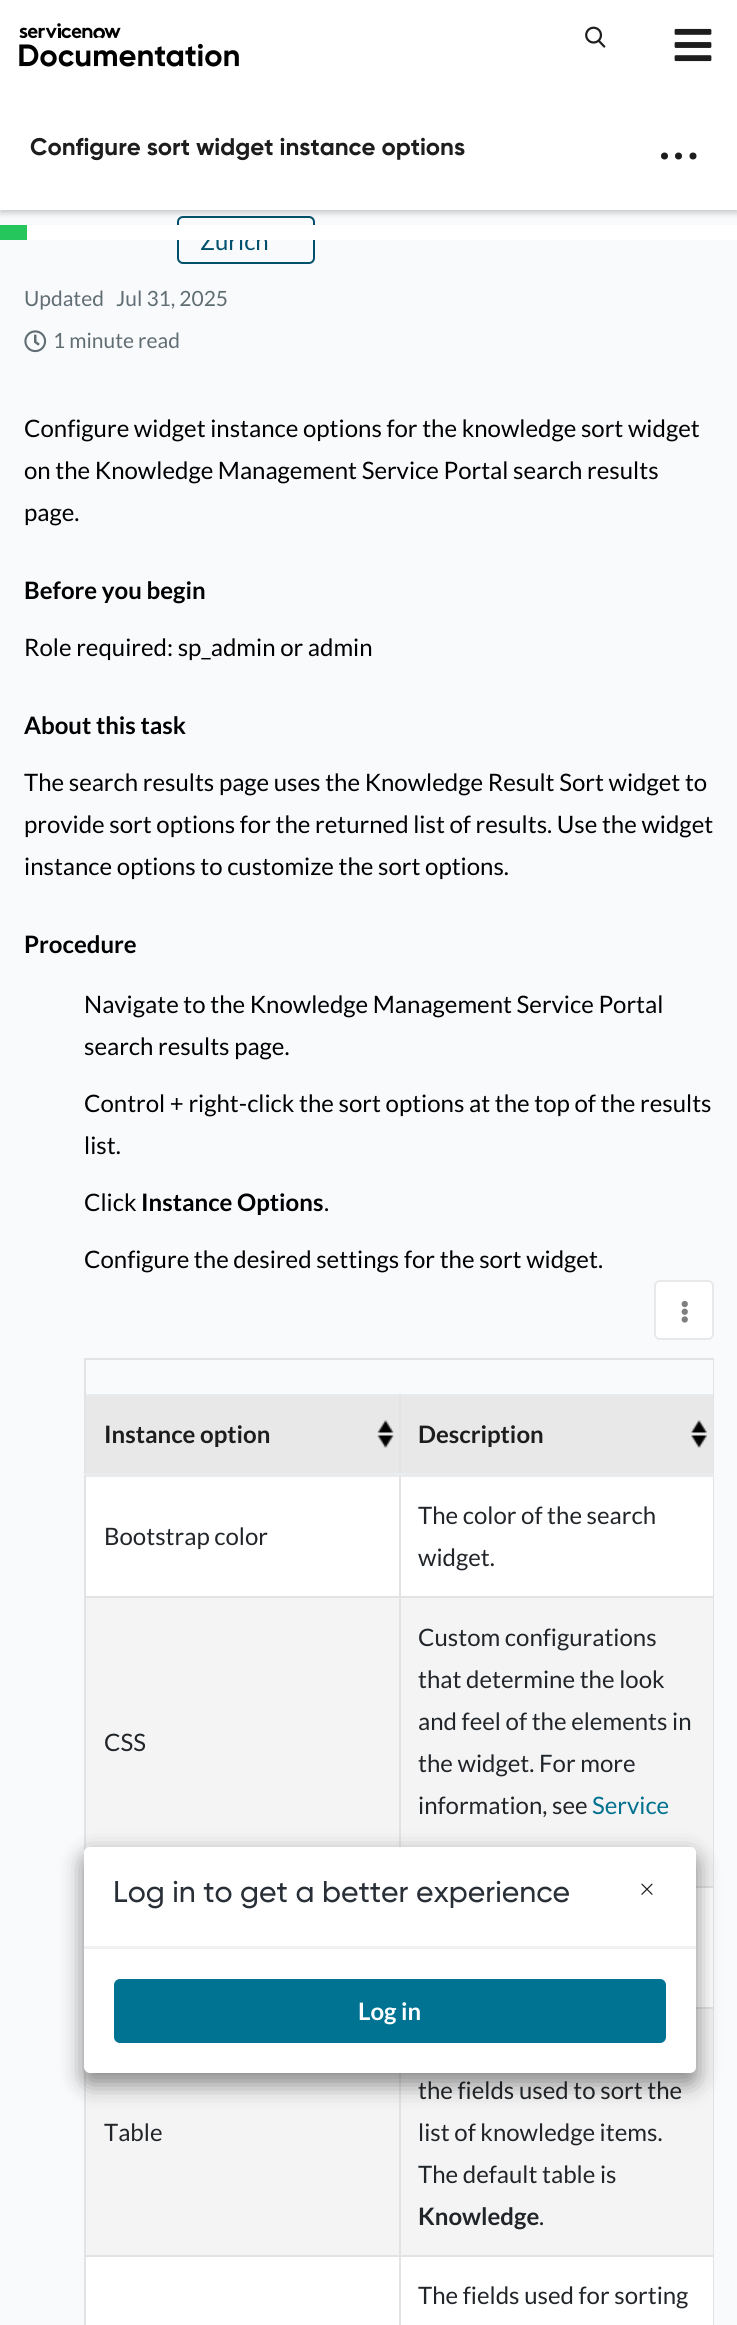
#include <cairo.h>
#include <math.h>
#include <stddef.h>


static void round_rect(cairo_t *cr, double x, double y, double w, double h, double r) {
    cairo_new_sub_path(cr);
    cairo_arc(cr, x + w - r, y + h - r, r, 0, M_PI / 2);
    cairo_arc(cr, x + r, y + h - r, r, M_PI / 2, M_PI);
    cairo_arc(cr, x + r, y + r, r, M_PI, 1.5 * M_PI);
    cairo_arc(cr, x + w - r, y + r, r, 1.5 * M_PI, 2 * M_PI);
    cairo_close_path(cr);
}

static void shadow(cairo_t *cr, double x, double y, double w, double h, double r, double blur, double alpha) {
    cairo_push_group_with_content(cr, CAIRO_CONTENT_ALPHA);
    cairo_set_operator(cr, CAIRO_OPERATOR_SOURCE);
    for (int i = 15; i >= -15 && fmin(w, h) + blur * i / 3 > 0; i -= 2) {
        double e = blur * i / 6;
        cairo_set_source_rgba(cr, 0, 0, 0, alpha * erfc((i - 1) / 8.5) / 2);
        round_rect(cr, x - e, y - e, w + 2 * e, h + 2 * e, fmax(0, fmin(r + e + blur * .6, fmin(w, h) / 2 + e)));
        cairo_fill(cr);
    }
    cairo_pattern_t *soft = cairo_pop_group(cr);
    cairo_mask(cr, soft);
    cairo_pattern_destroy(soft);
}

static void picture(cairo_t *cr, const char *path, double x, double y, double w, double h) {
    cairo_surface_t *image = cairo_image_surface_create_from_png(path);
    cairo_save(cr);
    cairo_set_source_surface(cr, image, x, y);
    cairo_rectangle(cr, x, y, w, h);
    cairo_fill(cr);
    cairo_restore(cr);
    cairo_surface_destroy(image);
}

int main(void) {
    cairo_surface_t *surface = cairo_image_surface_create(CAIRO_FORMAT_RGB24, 737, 2325);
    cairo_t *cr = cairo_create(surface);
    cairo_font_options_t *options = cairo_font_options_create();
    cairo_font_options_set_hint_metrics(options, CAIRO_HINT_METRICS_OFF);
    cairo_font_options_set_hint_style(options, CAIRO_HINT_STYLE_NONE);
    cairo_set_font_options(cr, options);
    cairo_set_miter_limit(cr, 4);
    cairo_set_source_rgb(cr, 0.973, 0.98, 0.988);
    cairo_paint(cr);
    round_rect(cr, 178, 217, 136, 46, 5);
    cairo_set_source_rgb(cr, 0.008, 0.314, 0.42);
    cairo_stroke(cr);
    cairo_set_source_rgb(cr, 0, 0, 0);
    shadow(cr, 0, 93, 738, 120, 0, 3, 0.2);
    cairo_set_source_rgb(cr, 1, 1, 1);
    cairo_rectangle(cr, 0, 0, 737, 210);
    cairo_fill(cr);
    picture(cr, "img1.png", 19, 23, 220, 44);
    picture(cr, "img2.png", 585, 26, 21, 22);
    picture(cr, "img3.png", 674, 28, 38, 34);
    cairo_select_font_face(cr, "Gilroy", CAIRO_FONT_SLANT_NORMAL, CAIRO_FONT_WEIGHT_BOLD);
    cairo_set_font_size(cr, 24);
    cairo_set_source_rgb(cr, 0.114, 0.114, 0.114);
    cairo_move_to(cr, 30, 155);
    cairo_show_text(cr, "Configure sort widget instance options");
    cairo_new_path(cr);
    cairo_arc(cr, 664.5, 156, 3.5, 0, 2 * M_PI);
    cairo_fill(cr);
    cairo_arc(cr, 678.5, 156, 3.5, 0, 2 * M_PI);
    cairo_fill(cr);
    cairo_arc(cr, 693, 156, 3.5, 0, 2 * M_PI);
    cairo_fill(cr);
    cairo_set_source_rgb(cr, 0.145, 0.78, 0.365);
    cairo_rectangle(cr, 0, 225, 27, 15);
    cairo_fill(cr);
    cairo_select_font_face(cr, "Lato", CAIRO_FONT_SLANT_NORMAL, CAIRO_FONT_WEIGHT_NORMAL);
    cairo_set_source_rgb(cr, 0.008, 0.314, 0.42);
    cairo_move_to(cr, 200, 250);
    cairo_show_text(cr, "Zurich");
    cairo_set_source_rgb(cr, 1, 1, 1);
    cairo_rectangle(cr, 27, 225, 710, 15);
    cairo_fill(cr);
    cairo_set_font_size(cr, 21);
    cairo_set_source_rgb(cr, 0.376, 0.431, 0.455);
    cairo_move_to(cr, 24, 306);
    cairo_show_text(cr, "Updated");
    cairo_move_to(cr, 116, 306);
    cairo_show_text(cr, "Jul 31, 2025");
    picture(cr, "img4.png", 24, 330, 23, 23);
    cairo_move_to(cr, 53, 348);
    cairo_show_text(cr, "1 minute read");
    cairo_set_font_size(cr, 24);
    cairo_set_source_rgb(cr, 0, 0, 0);
    cairo_move_to(cr, 24, 437);
    cairo_show_text(cr, "Configure widget instance options for the knowledge sort widget");
    cairo_move_to(cr, 24, 479);
    cairo_show_text(cr, "on the Knowledge Management Service Portal search results");
    cairo_move_to(cr, 24, 521);
    cairo_show_text(cr, "page.");
    cairo_select_font_face(cr, "Lato", CAIRO_FONT_SLANT_NORMAL, CAIRO_FONT_WEIGHT_BOLD);
    cairo_move_to(cr, 24, 599);
    cairo_show_text(cr, "Before you begin");
    cairo_select_font_face(cr, "Lato", CAIRO_FONT_SLANT_NORMAL, CAIRO_FONT_WEIGHT_NORMAL);
    cairo_move_to(cr, 24, 656);
    cairo_show_text(cr, "Role required: sp_admin or admin");
    cairo_select_font_face(cr, "Lato", CAIRO_FONT_SLANT_NORMAL, CAIRO_FONT_WEIGHT_BOLD);
    cairo_move_to(cr, 24, 734);
    cairo_show_text(cr, "About this task");
    cairo_select_font_face(cr, "Lato", CAIRO_FONT_SLANT_NORMAL, CAIRO_FONT_WEIGHT_NORMAL);
    cairo_move_to(cr, 24, 791);
    cairo_show_text(cr, "The search results page uses the Knowledge Result Sort widget to");
    cairo_move_to(cr, 24, 833);
    cairo_show_text(cr, "provide sort options for the returned list of results. Use the widget");
    cairo_move_to(cr, 24, 875);
    cairo_show_text(cr, "instance options to customize the sort options.");
    cairo_select_font_face(cr, "Lato", CAIRO_FONT_SLANT_NORMAL, CAIRO_FONT_WEIGHT_BOLD);
    cairo_move_to(cr, 24, 953);
    cairo_show_text(cr, "Procedure");
    cairo_select_font_face(cr, "Lato", CAIRO_FONT_SLANT_NORMAL, CAIRO_FONT_WEIGHT_NORMAL);
    cairo_move_to(cr, 84, 1013);
    cairo_show_text(cr, "Navigate to the Knowledge Management Service Portal");
    cairo_move_to(cr, 84, 1055);
    cairo_show_text(cr, "search results page.");
    cairo_move_to(cr, 84, 1112);
    cairo_show_text(cr, "Control + right-click the sort options at the top of the results");
    cairo_move_to(cr, 84, 1154);
    cairo_show_text(cr, "list.");
    cairo_move_to(cr, 84, 1211);
    cairo_show_text(cr, "Click");
    cairo_select_font_face(cr, "Lato", CAIRO_FONT_SLANT_NORMAL, CAIRO_FONT_WEIGHT_BOLD);
    cairo_move_to(cr, 141, 1211);
    cairo_show_text(cr, "Instance Options");
    cairo_select_font_face(cr, "Lato", CAIRO_FONT_SLANT_NORMAL, CAIRO_FONT_WEIGHT_NORMAL);
    cairo_move_to(cr, 324, 1211);
    cairo_show_text(cr, ".");
    cairo_move_to(cr, 84, 1268);
    cairo_show_text(cr, "Configure the desired settings for the sort widget.");
    cairo_set_source_rgb(cr, 1, 1, 1);
    round_rect(cr, 655, 1281, 58, 58, 5);
    cairo_fill_preserve(cr);
    cairo_set_source_rgb(cr, 0.914, 0.914, 0.914);
    cairo_stroke(cr);
    picture(cr, "img5.png", 681, 1301, 7, 22);
    cairo_set_source_rgb(cr, 0.89, 0.89, 0.89);
    cairo_rectangle(cr, 84, 1358, 630, 2);
    cairo_fill(cr);
    cairo_rectangle(cr, 713, 1358, 1, 36);
    cairo_fill(cr);
    cairo_rectangle(cr, 84, 1358, 2, 36);
    cairo_fill(cr);
    cairo_set_source_rgb(cr, 0.91, 0.91, 0.91);
    cairo_rectangle(cr, 394, 1396, 319, 77);
    cairo_fill(cr);
    picture(cr, "img6.png", 86, 1396, 308, 77);
    cairo_set_source_rgb(cr, 0.914, 0.925, 0.937);
    cairo_rectangle(cr, 84, 1394, 630, 2);
    cairo_fill(cr);
    cairo_set_source_rgb(cr, 1, 1, 1);
    cairo_rectangle(cr, 86, 1477, 627, 119);
    cairo_fill(cr);
    cairo_set_source_rgb(cr, 0.914, 0.925, 0.937);
    cairo_rectangle(cr, 84, 1476, 630, 1);
    cairo_fill(cr);
    cairo_set_source_rgb(cr, 0.89, 0.89, 0.89);
    cairo_rectangle(cr, 713, 1596, 1, 729);
    cairo_fill(cr);
    cairo_rectangle(cr, 713, 1475, 1, 123);
    cairo_fill(cr);
    cairo_set_source_rgb(cr, 0.957, 0.957, 0.957);
    cairo_rectangle(cr, 86, 1598, 627, 288);
    cairo_fill(cr);
    cairo_set_source_rgb(cr, 0.89, 0.89, 0.89);
    cairo_rectangle(cr, 399, 1596, 2, 251);
    cairo_fill(cr);
    cairo_rectangle(cr, 399, 1596, 315, 2);
    cairo_fill(cr);
    cairo_rectangle(cr, 399, 1475, 2, 123);
    cairo_fill(cr);
    cairo_rectangle(cr, 399, 1394, 2, 82);
    cairo_fill(cr);
    cairo_rectangle(cr, 84, 1596, 2, 257);
    cairo_fill(cr);
    cairo_rectangle(cr, 84, 1596, 317, 2);
    cairo_fill(cr);
    cairo_rectangle(cr, 84, 1475, 2, 123);
    cairo_fill(cr);
    cairo_rectangle(cr, 84, 1394, 2, 82);
    cairo_fill(cr);
    cairo_select_font_face(cr, "Lato", CAIRO_FONT_SLANT_NORMAL, CAIRO_FONT_WEIGHT_BOLD);
    cairo_set_source_rgb(cr, 0.114, 0.114, 0.114);
    cairo_move_to(cr, 104, 1443);
    cairo_show_text(cr, "Instance option");
    picture(cr, "img7.png", 691, 1396, 22, 52);
    cairo_set_source_rgb(cr, 0.89, 0.89, 0.89);
    cairo_rectangle(cr, 713, 1394, 1, 82);
    cairo_fill(cr);
    cairo_set_source_rgb(cr, 0.914, 0.925, 0.937);
    cairo_rectangle(cr, 84, 1473, 630, 3);
    cairo_fill(cr);
    cairo_set_source_rgb(cr, 0.114, 0.114, 0.114);
    cairo_move_to(cr, 418, 1443);
    cairo_show_text(cr, "Description");
    cairo_select_font_face(cr, "Lato", CAIRO_FONT_SLANT_NORMAL, CAIRO_FONT_WEIGHT_NORMAL);
    cairo_set_source_rgb(cr, 0.129, 0.145, 0.161);
    cairo_move_to(cr, 104, 1545);
    cairo_show_text(cr, "Bootstrap color");
    cairo_move_to(cr, 418, 1524);
    cairo_show_text(cr, "The color of the search");
    cairo_move_to(cr, 418, 1566);
    cairo_show_text(cr, "widget.");
    cairo_move_to(cr, 104, 1751);
    cairo_show_text(cr, "CSS");
    cairo_set_source_rgb(cr, 0.89, 0.89, 0.89);
    cairo_rectangle(cr, 696, 1886, 18, 2);
    cairo_fill(cr);
    cairo_set_source_rgb(cr, 0.129, 0.145, 0.161);
    cairo_move_to(cr, 418, 1646);
    cairo_show_text(cr, "Custom configurations");
    cairo_move_to(cr, 418, 1688);
    cairo_show_text(cr, "that determine the look");
    cairo_move_to(cr, 418, 1730);
    cairo_show_text(cr, "and feel of the elements in");
    cairo_move_to(cr, 418, 1772);
    cairo_show_text(cr, "the widget. For more");
    cairo_move_to(cr, 418, 1814);
    cairo_show_text(cr, "information, see");
    cairo_set_source_rgb(cr, 0, 0.443, 0.561);
    cairo_move_to(cr, 592, 1814);
    cairo_show_text(cr, "Service");
    cairo_set_source_rgb(cr, 1, 1, 1);
    cairo_rectangle(cr, 696, 1888, 17, 119);
    cairo_fill(cr);
    cairo_set_source_rgb(cr, 0.89, 0.89, 0.89);
    cairo_rectangle(cr, 696, 2007, 18, 2);
    cairo_fill(cr);
    cairo_set_source_rgb(cr, 0.957, 0.957, 0.957);
    cairo_rectangle(cr, 86, 2009, 627, 246);
    cairo_fill(cr);
    cairo_set_source_rgb(cr, 1, 1, 1);
    cairo_rectangle(cr, 86, 2257, 627, 68);
    cairo_fill(cr);
    cairo_set_source_rgb(cr, 0.89, 0.89, 0.89);
    cairo_rectangle(cr, 399, 2255, 2, 70);
    cairo_fill(cr);
    cairo_rectangle(cr, 399, 2255, 315, 2);
    cairo_fill(cr);
    cairo_rectangle(cr, 399, 2073, 2, 183);
    cairo_fill(cr);
    cairo_rectangle(cr, 84, 2255, 2, 70);
    cairo_fill(cr);
    cairo_rectangle(cr, 84, 2255, 317, 2);
    cairo_fill(cr);
    cairo_rectangle(cr, 84, 2067, 2, 189);
    cairo_fill(cr);
    cairo_set_source_rgb(cr, 0.129, 0.145, 0.161);
    cairo_move_to(cr, 104, 2141);
    cairo_show_text(cr, "Table");
    cairo_move_to(cr, 418, 2099);
    cairo_show_text(cr, "the fields used to sort the");
    cairo_move_to(cr, 418, 2141);
    cairo_show_text(cr, "list of knowledge items.");
    cairo_move_to(cr, 418, 2183);
    cairo_show_text(cr, "The default table is");
    cairo_select_font_face(cr, "Lato", CAIRO_FONT_SLANT_NORMAL, CAIRO_FONT_WEIGHT_BOLD);
    cairo_move_to(cr, 418, 2225);
    cairo_show_text(cr, "Knowledge");
    cairo_select_font_face(cr, "Lato", CAIRO_FONT_SLANT_NORMAL, CAIRO_FONT_WEIGHT_NORMAL);
    cairo_move_to(cr, 539, 2225);
    cairo_show_text(cr, ".");
    cairo_move_to(cr, 418, 2304);
    cairo_show_text(cr, "The fields used for sorting");
    cairo_set_source_rgb(cr, 0, 0, 0);
    shadow(cr, 84, 1854, 612, 227, 6, 11, 0.25);
    shadow(cr, 84, 1859, 612, 226, 6, 12, 0.27);
    cairo_set_source_rgb(cr, 1, 1, 1);
    round_rect(cr, 84, 1847, 612, 226, 6);
    cairo_fill(cr);
    cairo_new_path(cr);
    cairo_move_to(cr, 90, 1847);
    cairo_line_to(cr, 690, 1847);
    cairo_curve_to(cr, 693.5, 1847, 696, 1849.5, 696, 1853);
    cairo_line_to(cr, 696, 1947);
    cairo_line_to(cr, 84, 1947);
    cairo_line_to(cr, 84, 1853);
    cairo_curve_to(cr, 84, 1849.5, 86.5, 1847, 90, 1847);
    cairo_close_path(cr);
    cairo_fill(cr);
    cairo_set_source_rgb(cr, 0.945, 0.945, 0.945);
    cairo_rectangle(cr, 84, 1946, 612, 3);
    cairo_fill(cr);
    cairo_select_font_face(cr, "Gilroy Medium", CAIRO_FONT_SLANT_NORMAL, CAIRO_FONT_WEIGHT_NORMAL);
    cairo_set_font_size(cr, 30);
    cairo_set_source_rgb(cr, 0.157, 0.184, 0.212);
    cairo_move_to(cr, 113, 1902);
    cairo_show_text(cr, "Log in to get a better experience");
    picture(cr, "img8.png", 641, 1883, 12, 12);
    cairo_set_source_rgb(cr, 0, 0.451, 0.576);
    round_rect(cr, 114, 1979, 552, 64, 6);
    cairo_fill(cr);
    cairo_select_font_face(cr, "Lato", CAIRO_FONT_SLANT_NORMAL, CAIRO_FONT_WEIGHT_BOLD);
    cairo_set_font_size(cr, 24);
    cairo_set_source_rgb(cr, 1, 1, 1);
    cairo_move_to(cr, 358, 2020);
    cairo_show_text(cr, "Log in");
    cairo_surface_write_to_png(surface, "page.png");
    cairo_font_options_destroy(options);
    cairo_destroy(cr);
    cairo_surface_destroy(surface);
    return 0;
}
